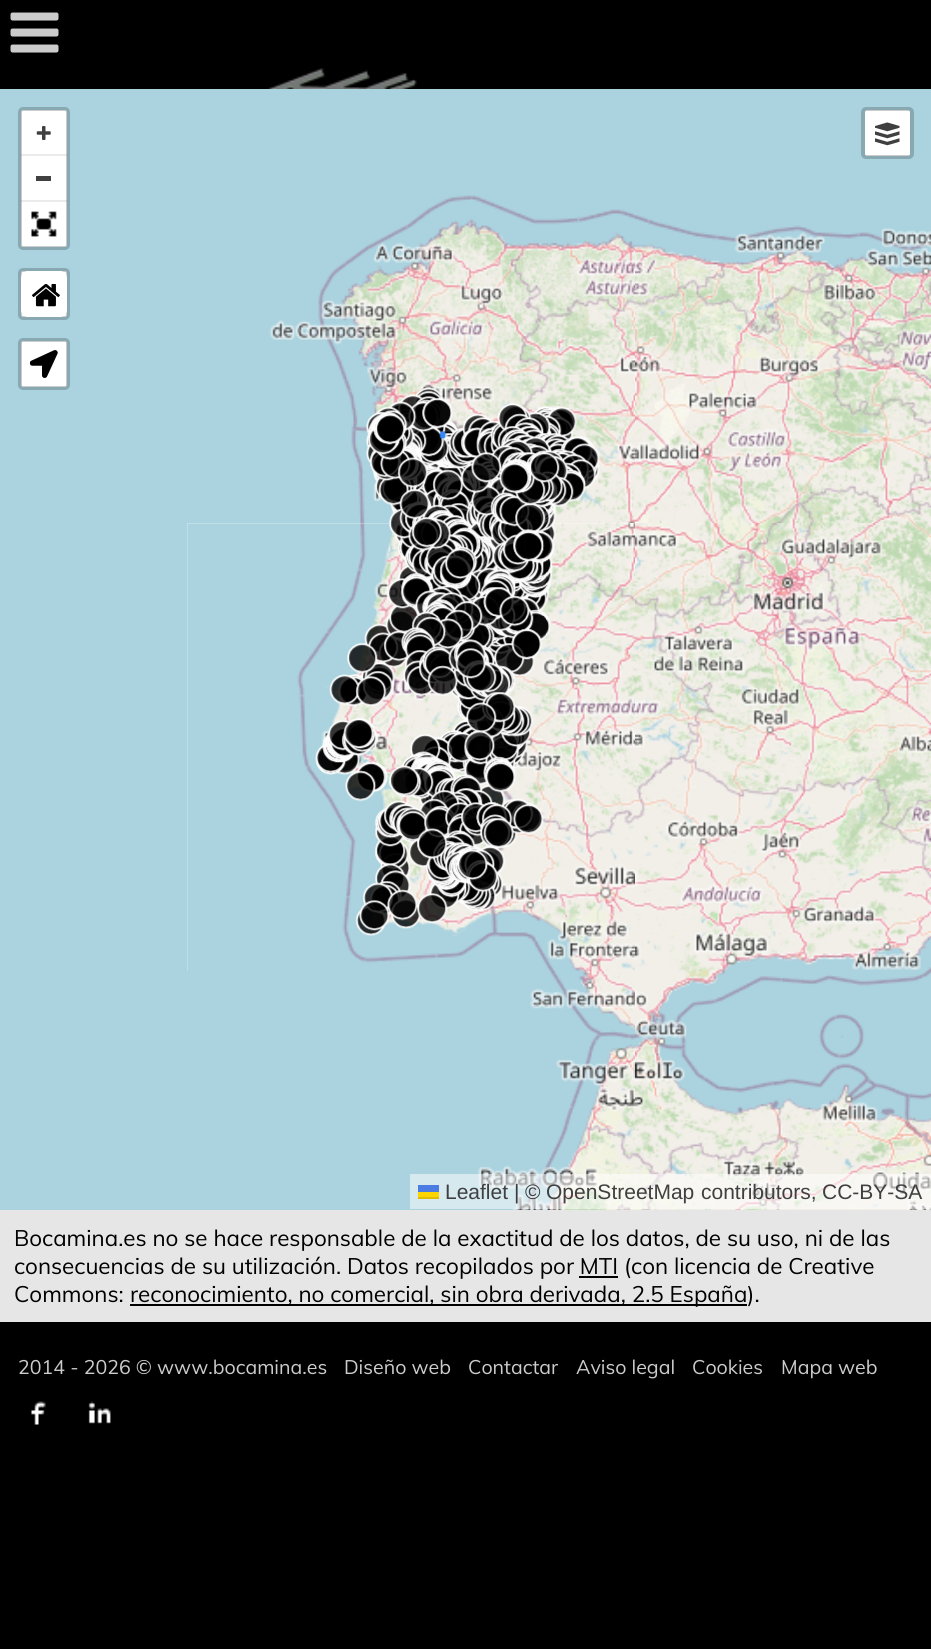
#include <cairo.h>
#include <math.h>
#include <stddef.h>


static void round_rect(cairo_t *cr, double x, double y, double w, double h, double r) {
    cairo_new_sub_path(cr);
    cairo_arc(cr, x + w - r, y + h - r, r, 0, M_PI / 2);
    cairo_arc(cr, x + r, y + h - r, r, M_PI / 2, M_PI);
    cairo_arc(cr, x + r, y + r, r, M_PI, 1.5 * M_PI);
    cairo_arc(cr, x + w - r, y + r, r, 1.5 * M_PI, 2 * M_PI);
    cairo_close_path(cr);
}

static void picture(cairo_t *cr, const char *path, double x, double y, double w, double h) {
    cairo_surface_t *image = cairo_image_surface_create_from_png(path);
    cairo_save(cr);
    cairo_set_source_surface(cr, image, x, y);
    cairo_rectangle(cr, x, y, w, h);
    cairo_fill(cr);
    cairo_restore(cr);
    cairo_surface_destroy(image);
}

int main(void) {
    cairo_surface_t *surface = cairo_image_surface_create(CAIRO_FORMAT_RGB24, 931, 1649);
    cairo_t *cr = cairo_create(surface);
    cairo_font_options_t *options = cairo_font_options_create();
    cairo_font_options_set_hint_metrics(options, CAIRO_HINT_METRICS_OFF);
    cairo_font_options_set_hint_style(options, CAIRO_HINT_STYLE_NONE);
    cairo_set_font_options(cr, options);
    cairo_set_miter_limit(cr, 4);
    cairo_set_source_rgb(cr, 0, 0, 0);
    cairo_paint(cr);
    picture(cr, "img1.png", 266, 68, 151, 21);
    picture(cr, "img2.png", 10, 12, 49, 41);
    cairo_set_source_rgb(cr, 1, 1, 1);
    cairo_rectangle(cr, 187, 523, 448, 448);
    cairo_fill(cr);
    cairo_set_source_rgb(cr, 0.667, 0.827, 0.875);
    cairo_rectangle(cr, 0, 89, 187, 1121);
    cairo_fill(cr);
    picture(cr, "img3.png", 187, 89, 448, 434);
    picture(cr, "img4.png", 635, 89, 296, 434);
    picture(cr, "img5.png", 187, 523, 448, 448);
    picture(cr, "img6.png", 635, 523, 296, 448);
    picture(cr, "img7.png", 187, 971, 448, 239);
    picture(cr, "img8.png", 635, 971, 296, 239);
    picture(cr, "img9.png", 315, 387, 285, 549);
    cairo_set_source_rgb(cr, 1, 1, 1);
    round_rect(cr, 21, 110, 46, 137, 2);
    cairo_fill(cr);
    round_rect(cr, 20, 109, 48, 139, 3);
    cairo_set_source_rgba(cr, 0, 0, 0, 0.2);
    cairo_set_line_width(cr, 4);
    cairo_stroke(cr);
    picture(cr, "img10.png", 36, 126, 15, 14);
    cairo_set_source_rgba(cr, 0, 0, 0, 0.08);
    cairo_rectangle(cr, 21, 154, 46, 2);
    cairo_fill(cr);
    cairo_set_source_rgb(cr, 0.251, 0.251, 0.251);
    cairo_rectangle(cr, 36, 176, 15, 5);
    cairo_fill(cr);
    cairo_set_source_rgba(cr, 0, 0, 0, 0.08);
    cairo_rectangle(cr, 21, 200, 46, 2);
    cairo_fill(cr);
    picture(cr, "img11.png", 31, 211, 26, 26);
    cairo_set_source_rgb(cr, 1, 1, 1);
    round_rect(cr, 21, 271, 46, 46, 2);
    cairo_fill(cr);
    round_rect(cr, 20, 270, 48, 48, 3);
    cairo_set_source_rgba(cr, 0, 0, 0, 0.2);
    cairo_stroke(cr);
    cairo_set_source_rgb(cr, 1, 1, 1);
    round_rect(cr, 21, 271, 46, 46, 7);
    cairo_fill(cr);
    picture(cr, "img12.png", 32, 284, 28, 23);
    round_rect(cr, 21, 341, 46, 46, 2);
    cairo_fill(cr);
    round_rect(cr, 20, 340, 48, 48, 3);
    cairo_set_source_rgba(cr, 0, 0, 0, 0.2);
    cairo_stroke(cr);
    picture(cr, "img13.png", 30, 350, 28, 28);
    cairo_set_source_rgb(cr, 1, 1, 1);
    round_rect(cr, 865, 110, 45, 46, 2);
    cairo_fill(cr);
    round_rect(cr, 863, 109, 49, 48, 3);
    cairo_set_source_rgba(cr, 0, 0, 0, 0.2);
    cairo_stroke(cr);
    picture(cr, "img14.png", 875, 122, 25, 24);
    cairo_set_source_rgba(cr, 1, 1, 1, 0.5);
    cairo_rectangle(cr, 410, 1174, 521, 35);
    cairo_fill(cr);
    cairo_select_font_face(cr, "Liberation Sans", CAIRO_FONT_SLANT_NORMAL, CAIRO_FONT_WEIGHT_NORMAL);
    cairo_set_font_size(cr, 21);
    cairo_set_source_rgb(cr, 0.251, 0.251, 0.251);
    cairo_move_to(cr, 445, 1199);
    cairo_show_text(cr, "Leaflet");
    cairo_set_source_rgb(cr, 0.298, 0.482, 0.882);
    cairo_rectangle(cr, 418, 1185, 21, 7);
    cairo_fill(cr);
    cairo_set_source_rgb(cr, 1, 0.835, 0);
    cairo_rectangle(cr, 418, 1192, 21, 5);
    cairo_fill(cr);
    cairo_set_source_rgb(cr, 0.878, 0.737, 0);
    cairo_rectangle(cr, 418, 1197, 21, 2);
    cairo_fill(cr);
    cairo_set_source_rgb(cr, 0.216, 0.231, 0.235);
    cairo_move_to(cr, 514, 1199);
    cairo_show_text(cr, "|");
    cairo_move_to(cr, 525, 1199);
    cairo_show_text(cr, "©");
    cairo_set_source_rgb(cr, 0.251, 0.251, 0.251);
    cairo_move_to(cr, 546, 1199);
    cairo_show_text(cr, "OpenStreetMap");
    cairo_move_to(cr, 701, 1199);
    cairo_show_text(cr, "contributors,");
    cairo_move_to(cr, 822, 1199);
    cairo_show_text(cr, "CC-BY-SA");
    cairo_set_source_rgb(cr, 0.902, 0.902, 0.902);
    cairo_rectangle(cr, 0, 1210, 931, 112);
    cairo_fill(cr);
    cairo_select_font_face(cr, "Muli", CAIRO_FONT_SLANT_NORMAL, CAIRO_FONT_WEIGHT_NORMAL);
    cairo_set_font_size(cr, 22.4);
    cairo_set_source_rgb(cr, 0, 0, 0);
    cairo_move_to(cr, 14, 1246);
    cairo_show_text(cr, "Bocamina.es no se hace responsable de la exactitud de los datos, de su uso, ni de las");
    cairo_move_to(cr, 14, 1274);
    cairo_show_text(cr, "consecuencias de su utilización. Datos recopilados por MTI (con licencia de Creative");
    cairo_rectangle(cr, 579, 1276, 39, 2);
    cairo_fill(cr);
    cairo_move_to(cr, 14, 1302);
    cairo_show_text(cr, "Commons:");
    cairo_rectangle(cr, 130, 1304, 617, 2);
    cairo_fill(cr);
    cairo_move_to(cr, 130, 1302);
    cairo_show_text(cr, "reconocimiento, no comercial, sin obra derivada, 2.5 España).");
    cairo_set_font_size(cr, 19.6);
    cairo_set_source_rgb(cr, 0.8, 0.8, 0.8);
    cairo_move_to(cr, 18, 1374);
    cairo_show_text(cr, "2014 - 2026 © www.bocamina.es");
    cairo_move_to(cr, 344, 1374);
    cairo_show_text(cr, "Diseño web");
    cairo_move_to(cr, 468, 1374);
    cairo_show_text(cr, "Contactar");
    cairo_move_to(cr, 576, 1374);
    cairo_show_text(cr, "Aviso legal");
    cairo_move_to(cr, 692, 1374);
    cairo_show_text(cr, "Cookies");
    cairo_move_to(cr, 781, 1374);
    cairo_show_text(cr, "Mapa web");
    picture(cr, "img15.png", 31, 1401, 15, 24);
    picture(cr, "img16.png", 88, 1401, 23, 23);
    cairo_surface_write_to_png(surface, "page.png");
    cairo_font_options_destroy(options);
    cairo_destroy(cr);
    cairo_surface_destroy(surface);
    return 0;
}
